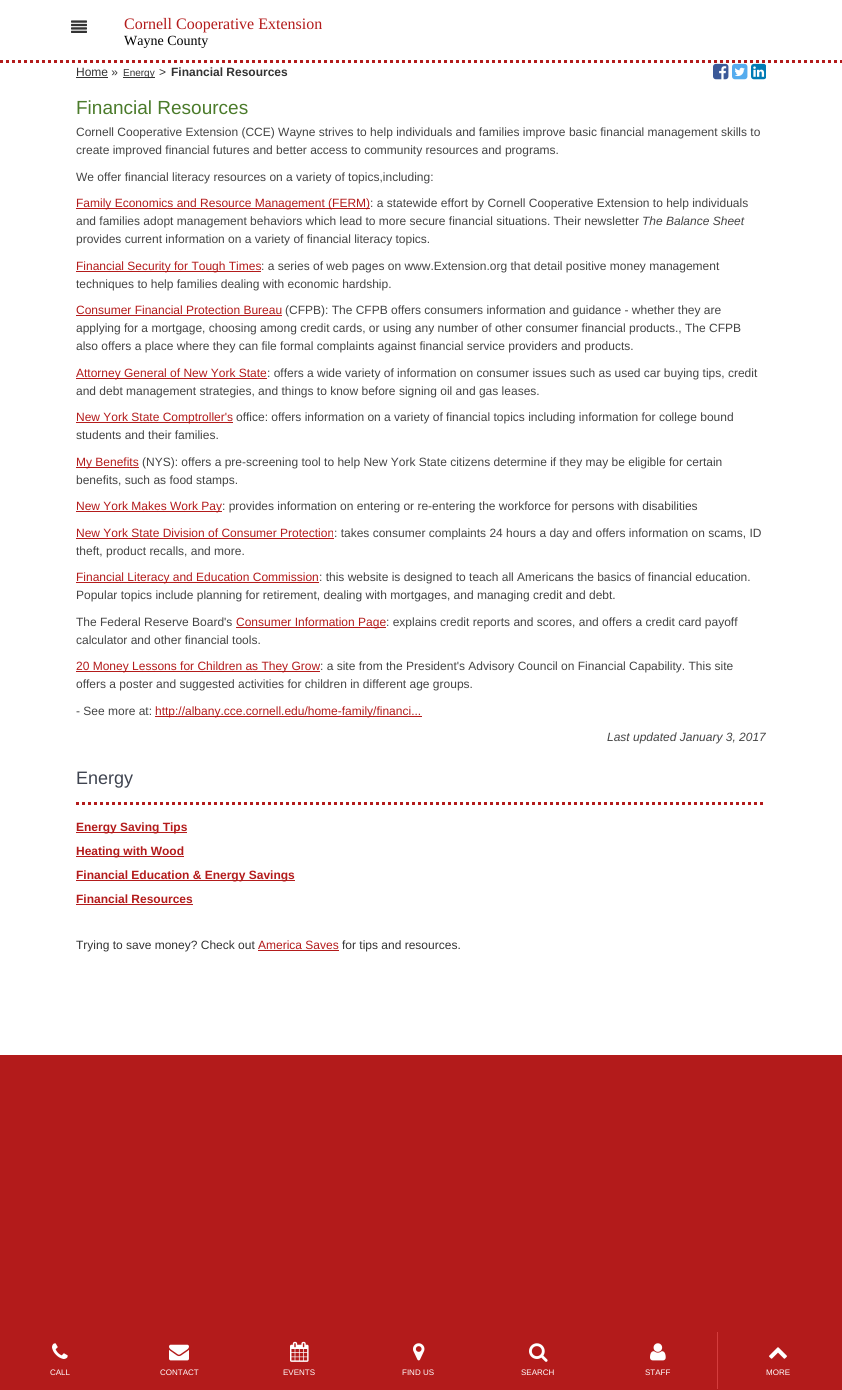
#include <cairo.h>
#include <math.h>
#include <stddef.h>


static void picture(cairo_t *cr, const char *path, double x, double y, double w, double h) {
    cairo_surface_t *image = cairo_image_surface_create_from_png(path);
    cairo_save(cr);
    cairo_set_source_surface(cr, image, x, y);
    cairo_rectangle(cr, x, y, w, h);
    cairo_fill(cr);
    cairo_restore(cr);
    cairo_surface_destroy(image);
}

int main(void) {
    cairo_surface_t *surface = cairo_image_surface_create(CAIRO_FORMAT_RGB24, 842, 1390);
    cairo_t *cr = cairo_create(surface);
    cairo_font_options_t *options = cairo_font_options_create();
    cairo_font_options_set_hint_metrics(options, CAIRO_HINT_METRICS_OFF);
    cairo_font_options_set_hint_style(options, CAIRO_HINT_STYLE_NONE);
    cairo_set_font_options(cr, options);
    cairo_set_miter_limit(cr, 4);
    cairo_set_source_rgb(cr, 0.702, 0.106, 0.106);
    cairo_paint(cr);
    cairo_set_source_rgb(cr, 1, 1, 1);
    cairo_rectangle(cr, 0, 0, 842, 1055);
    cairo_fill(cr);
    cairo_new_path(cr);
    cairo_move_to(cr, 0, 61.5);
    cairo_line_to(cr, 842, 61.5);
    cairo_set_source_rgb(cr, 0.702, 0.106, 0.106);
    cairo_set_line_width(cr, 3);
    cairo_set_dash(cr, (double[]){3, 3}, 2, 0);
    cairo_stroke(cr);
    picture(cr, "img1.png", 71, 20, 16, 13);
    cairo_select_font_face(cr, "Liberation Serif", CAIRO_FONT_SLANT_NORMAL, CAIRO_FONT_WEIGHT_NORMAL);
    cairo_set_font_size(cr, 16);
    cairo_move_to(cr, 124, 29);
    cairo_show_text(cr, "Cornell Cooperative Extension");
    cairo_set_font_size(cr, 14);
    cairo_set_source_rgb(cr, 0, 0, 0);
    cairo_move_to(cr, 124, 45);
    cairo_show_text(cr, "Wayne County");
    cairo_select_font_face(cr, "Liberation Sans", CAIRO_FONT_SLANT_NORMAL, CAIRO_FONT_WEIGHT_NORMAL);
    cairo_set_font_size(cr, 12);
    cairo_set_source_rgb(cr, 0.2, 0.2, 0.2);
    cairo_move_to(cr, 76, 76);
    cairo_show_text(cr, "Home »");
    cairo_rectangle(cr, 76, 77, 32, 1);
    cairo_fill(cr);
    cairo_rectangle(cr, 123, 77, 32, 1);
    cairo_fill(cr);
    cairo_set_font_size(cr, 10);
    cairo_move_to(cr, 123, 76);
    cairo_show_text(cr, "Energy");
    cairo_set_font_size(cr, 12);
    cairo_move_to(cr, 159, 76);
    cairo_show_text(cr, ">");
    cairo_select_font_face(cr, "Liberation Sans", CAIRO_FONT_SLANT_NORMAL, CAIRO_FONT_WEIGHT_BOLD);
    cairo_move_to(cr, 171, 76);
    cairo_show_text(cr, "Financial Resources");
    picture(cr, "img2.png", 713, 63, 16, 17);
    picture(cr, "img3.png", 732, 63, 16, 17);
    picture(cr, "img4.png", 751, 63, 15, 17);
    cairo_select_font_face(cr, "Liberation Sans", CAIRO_FONT_SLANT_NORMAL, CAIRO_FONT_WEIGHT_NORMAL);
    cairo_set_font_size(cr, 19);
    cairo_set_source_rgb(cr, 0.294, 0.482, 0.169);
    cairo_move_to(cr, 76, 114);
    cairo_show_text(cr, "Financial Resources");
    cairo_set_font_size(cr, 12);
    cairo_set_source_rgb(cr, 0.267, 0.267, 0.267);
    cairo_move_to(cr, 76, 136);
    cairo_show_text(cr, "Cornell Cooperative Extension (CCE) Wayne strives to help individuals and families improve basic financial management skills to");
    cairo_move_to(cr, 76, 154);
    cairo_show_text(cr, "create improved financial futures and better access to community resources and programs.");
    cairo_move_to(cr, 76, 181);
    cairo_show_text(cr, "We offer financial literacy resources on a variety of topics,including:");
    cairo_set_source_rgb(cr, 0.702, 0.106, 0.106);
    cairo_rectangle(cr, 76, 208, 294, 1);
    cairo_fill(cr);
    cairo_move_to(cr, 76, 207);
    cairo_show_text(cr, "Family Economics and Resource Management (FERM)");
    cairo_set_source_rgb(cr, 0.267, 0.267, 0.267);
    cairo_move_to(cr, 370, 207);
    cairo_show_text(cr, ": a statewide effort by Cornell Cooperative Extension to help individuals");
    cairo_move_to(cr, 76, 225);
    cairo_show_text(cr, "and families adopt management behaviors which lead to more secure financial situations. Their newsletter");
    cairo_select_font_face(cr, "Liberation Sans", CAIRO_FONT_SLANT_ITALIC, CAIRO_FONT_WEIGHT_NORMAL);
    cairo_move_to(cr, 642, 225);
    cairo_show_text(cr, "The Balance Sheet");
    cairo_select_font_face(cr, "Liberation Sans", CAIRO_FONT_SLANT_NORMAL, CAIRO_FONT_WEIGHT_NORMAL);
    cairo_move_to(cr, 76, 243);
    cairo_show_text(cr, "provides current information on a variety of financial literacy topics.");
    cairo_set_source_rgb(cr, 0.702, 0.106, 0.106);
    cairo_rectangle(cr, 76, 271, 185, 1);
    cairo_fill(cr);
    cairo_move_to(cr, 76, 270);
    cairo_show_text(cr, "Financial Security for Tough Times");
    cairo_set_source_rgb(cr, 0.267, 0.267, 0.267);
    cairo_move_to(cr, 261, 270);
    cairo_show_text(cr, ": a series of web pages on www.Extension.org that detail positive money management");
    cairo_move_to(cr, 76, 288);
    cairo_show_text(cr, "techniques to help families dealing with economic hardship.");
    cairo_set_source_rgb(cr, 0.702, 0.106, 0.106);
    cairo_move_to(cr, 76, 314);
    cairo_show_text(cr, "Consumer Financial Protection Bureau");
    cairo_rectangle(cr, 76, 315, 206, 1);
    cairo_fill(cr);
    cairo_set_source_rgb(cr, 0.267, 0.267, 0.267);
    cairo_move_to(cr, 285, 314);
    cairo_show_text(cr, "(CFPB): The CFPB offers consumers information and guidance - whether they are");
    cairo_move_to(cr, 76, 332);
    cairo_show_text(cr, "applying for a mortgage, choosing among credit cards, or using any number of other consumer financial products., The CFPB");
    cairo_move_to(cr, 76, 350);
    cairo_show_text(cr, "also offers a place where they can file formal complaints against financial service providers and products.");
    cairo_set_source_rgb(cr, 0.702, 0.106, 0.106);
    cairo_rectangle(cr, 76, 378, 191, 1);
    cairo_fill(cr);
    cairo_move_to(cr, 76, 377);
    cairo_show_text(cr, "Attorney General of New York State");
    cairo_set_source_rgb(cr, 0.267, 0.267, 0.267);
    cairo_move_to(cr, 267, 377);
    cairo_show_text(cr, ": offers a wide variety of information on consumer issues such as used car buying tips, credit");
    cairo_move_to(cr, 76, 395);
    cairo_show_text(cr, "and debt management strategies, and things to know before signing oil and gas leases.");
    cairo_set_source_rgb(cr, 0.702, 0.106, 0.106);
    cairo_rectangle(cr, 76, 422, 157, 1);
    cairo_fill(cr);
    cairo_move_to(cr, 76, 421);
    cairo_show_text(cr, "New York State Comptroller's");
    cairo_set_source_rgb(cr, 0.267, 0.267, 0.267);
    cairo_move_to(cr, 236, 421);
    cairo_show_text(cr, "office: offers information on a variety of financial topics including information for college bound");
    cairo_move_to(cr, 76, 439);
    cairo_show_text(cr, "students and their families.");
    cairo_set_source_rgb(cr, 0.702, 0.106, 0.106);
    cairo_rectangle(cr, 76, 467, 63, 1);
    cairo_fill(cr);
    cairo_move_to(cr, 76, 466);
    cairo_show_text(cr, "My Benefits");
    cairo_set_source_rgb(cr, 0.267, 0.267, 0.267);
    cairo_move_to(cr, 142, 466);
    cairo_show_text(cr, "(NYS): offers a pre-screening tool to help New York State citizens determine if they may be eligible for certain");
    cairo_move_to(cr, 76, 484);
    cairo_show_text(cr, "benefits, such as food stamps.");
    cairo_set_source_rgb(cr, 0.702, 0.106, 0.106);
    cairo_rectangle(cr, 76, 511, 146, 1);
    cairo_fill(cr);
    cairo_move_to(cr, 76, 510);
    cairo_show_text(cr, "New York Makes Work Pay");
    cairo_set_source_rgb(cr, 0.267, 0.267, 0.267);
    cairo_move_to(cr, 222, 510);
    cairo_show_text(cr, ": provides information on entering or re-entering the workforce for persons with disabilities");
    cairo_set_source_rgb(cr, 0.702, 0.106, 0.106);
    cairo_move_to(cr, 76, 537);
    cairo_show_text(cr, "New York State Division of Consumer Protection");
    cairo_rectangle(cr, 76, 538, 258, 1);
    cairo_fill(cr);
    cairo_set_source_rgb(cr, 0.267, 0.267, 0.267);
    cairo_move_to(cr, 334, 537);
    cairo_show_text(cr, ": takes consumer complaints 24 hours a day and offers information on scams, ID");
    cairo_move_to(cr, 76, 555);
    cairo_show_text(cr, "theft, product recalls, and more.");
    cairo_set_source_rgb(cr, 0.702, 0.106, 0.106);
    cairo_rectangle(cr, 76, 582, 243, 1);
    cairo_fill(cr);
    cairo_move_to(cr, 76, 581);
    cairo_show_text(cr, "Financial Literacy and Education Commission");
    cairo_set_source_rgb(cr, 0.267, 0.267, 0.267);
    cairo_move_to(cr, 319, 581);
    cairo_show_text(cr, ": this website is designed to teach all Americans the basics of financial education.");
    cairo_move_to(cr, 76, 599);
    cairo_show_text(cr, "Popular topics include planning for retirement, dealing with mortgages, and managing credit and debt.");
    cairo_move_to(cr, 76, 626);
    cairo_show_text(cr, "The Federal Reserve Board's");
    cairo_set_source_rgb(cr, 0.702, 0.106, 0.106);
    cairo_rectangle(cr, 236, 627, 150, 1);
    cairo_fill(cr);
    cairo_move_to(cr, 236, 626);
    cairo_show_text(cr, "Consumer Information Page");
    cairo_set_source_rgb(cr, 0.267, 0.267, 0.267);
    cairo_move_to(cr, 386, 626);
    cairo_show_text(cr, ": explains credit reports and scores, and offers a credit card payoff");
    cairo_move_to(cr, 76, 644);
    cairo_show_text(cr, "calculator and other financial tools.");
    cairo_set_source_rgb(cr, 0.702, 0.106, 0.106);
    cairo_rectangle(cr, 76, 671, 244, 1);
    cairo_fill(cr);
    cairo_move_to(cr, 76, 670);
    cairo_show_text(cr, "20 Money Lessons for Children as They Grow");
    cairo_set_source_rgb(cr, 0.267, 0.267, 0.267);
    cairo_move_to(cr, 320, 670);
    cairo_show_text(cr, ": a site from the President's Advisory Council on Financial Capability. This site");
    cairo_move_to(cr, 76, 688);
    cairo_show_text(cr, "offers a poster and suggested activities for children in different age groups.");
    cairo_move_to(cr, 76, 715);
    cairo_show_text(cr, "- See more at:");
    cairo_set_source_rgb(cr, 0.702, 0.106, 0.106);
    cairo_rectangle(cr, 155, 716, 267, 1);
    cairo_fill(cr);
    cairo_move_to(cr, 155, 715);
    cairo_show_text(cr, "http://albany.cce.cornell.edu/home-family/financi...");
    cairo_select_font_face(cr, "Liberation Sans", CAIRO_FONT_SLANT_ITALIC, CAIRO_FONT_WEIGHT_NORMAL);
    cairo_set_source_rgb(cr, 0.267, 0.267, 0.267);
    cairo_move_to(cr, 607, 741);
    cairo_show_text(cr, "Last updated January 3, 2017");
    cairo_select_font_face(cr, "Liberation Sans", CAIRO_FONT_SLANT_NORMAL, CAIRO_FONT_WEIGHT_NORMAL);
    cairo_set_font_size(cr, 18);
    cairo_set_source_rgb(cr, 0.247, 0.267, 0.314);
    cairo_move_to(cr, 76, 784);
    cairo_show_text(cr, "Energy");
    cairo_new_path(cr);
    cairo_move_to(cr, 76, 803.5);
    cairo_line_to(cr, 766, 803.5);
    cairo_set_source_rgb(cr, 0.702, 0.106, 0.106);
    cairo_stroke(cr);
    cairo_rectangle(cr, 76, 832, 111, 1);
    cairo_fill(cr);
    cairo_select_font_face(cr, "Liberation Sans", CAIRO_FONT_SLANT_NORMAL, CAIRO_FONT_WEIGHT_BOLD);
    cairo_set_font_size(cr, 12);
    cairo_move_to(cr, 76, 831);
    cairo_show_text(cr, "Energy Saving Tips");
    cairo_rectangle(cr, 76, 856, 108, 1);
    cairo_fill(cr);
    cairo_move_to(cr, 76, 855);
    cairo_show_text(cr, "Heating with Wood");
    cairo_rectangle(cr, 76, 880, 219, 1);
    cairo_fill(cr);
    cairo_move_to(cr, 76, 879);
    cairo_show_text(cr, "Financial Education & Energy Savings");
    cairo_move_to(cr, 76, 903);
    cairo_show_text(cr, "Financial Resources");
    cairo_rectangle(cr, 76, 904, 117, 1);
    cairo_fill(cr);
    cairo_select_font_face(cr, "Liberation Sans", CAIRO_FONT_SLANT_NORMAL, CAIRO_FONT_WEIGHT_NORMAL);
    cairo_set_source_rgb(cr, 0.2, 0.2, 0.2);
    cairo_move_to(cr, 76, 949);
    cairo_show_text(cr, "Trying to save money? Check out");
    cairo_set_source_rgb(cr, 0.702, 0.106, 0.106);
    cairo_move_to(cr, 258, 949);
    cairo_show_text(cr, "America Saves");
    cairo_rectangle(cr, 258, 950, 81, 1);
    cairo_fill(cr);
    cairo_set_source_rgb(cr, 0.2, 0.2, 0.2);
    cairo_move_to(cr, 342, 949);
    cairo_show_text(cr, "for tips and resources.");
    picture(cr, "img5.png", 52, 1343, 16, 16);
    cairo_set_font_size(cr, 8);
    cairo_set_source_rgb(cr, 1, 1, 1);
    cairo_move_to(cr, 50, 1375);
    cairo_show_text(cr, "CALL");
    picture(cr, "img6.png", 169, 1344, 20, 17);
    cairo_move_to(cr, 160, 1375);
    cairo_show_text(cr, "CONTACT");
    picture(cr, "img7.png", 290, 1341, 19, 21);
    cairo_move_to(cr, 283, 1375);
    cairo_show_text(cr, "EVENTS");
    picture(cr, "img8.png", 413, 1343, 12, 18);
    cairo_move_to(cr, 402, 1375);
    cairo_show_text(cr, "FIND US");
    picture(cr, "img9.png", 529, 1343, 19, 19);
    cairo_move_to(cr, 521, 1375);
    cairo_show_text(cr, "SEARCH");
    picture(cr, "img10.png", 650, 1343, 16, 18);
    cairo_move_to(cr, 645, 1375);
    cairo_show_text(cr, "STAFF");
    cairo_set_source_rgb(cr, 0.835, 0.239, 0.239);
    cairo_rectangle(cr, 717, 1332, 1, 57);
    cairo_fill(cr);
    picture(cr, "img11.png", 769, 1347, 18, 12);
    cairo_set_source_rgb(cr, 1, 1, 1);
    cairo_move_to(cr, 766, 1375);
    cairo_show_text(cr, "MORE");
    cairo_surface_write_to_png(surface, "page.png");
    cairo_font_options_destroy(options);
    cairo_destroy(cr);
    cairo_surface_destroy(surface);
    return 0;
}
